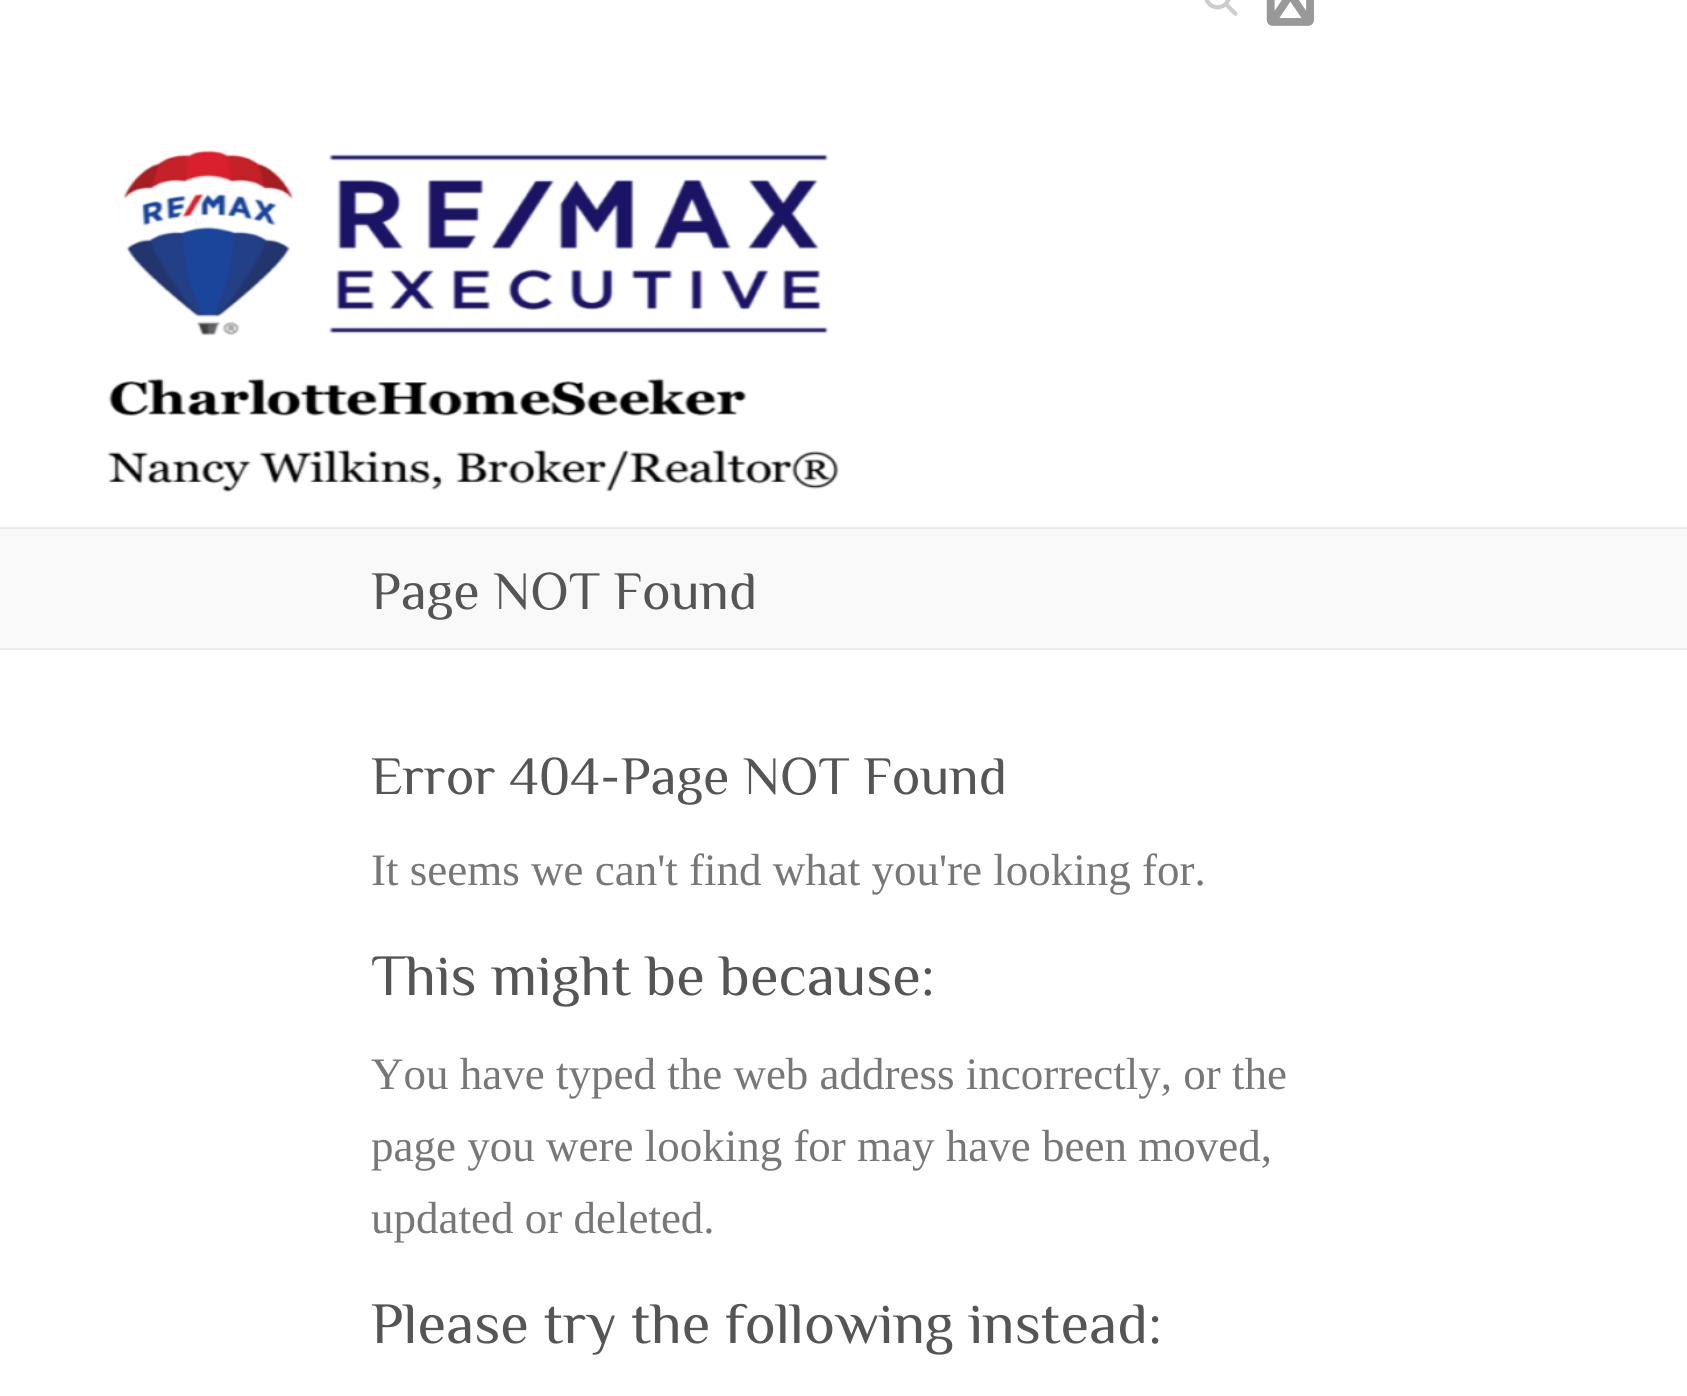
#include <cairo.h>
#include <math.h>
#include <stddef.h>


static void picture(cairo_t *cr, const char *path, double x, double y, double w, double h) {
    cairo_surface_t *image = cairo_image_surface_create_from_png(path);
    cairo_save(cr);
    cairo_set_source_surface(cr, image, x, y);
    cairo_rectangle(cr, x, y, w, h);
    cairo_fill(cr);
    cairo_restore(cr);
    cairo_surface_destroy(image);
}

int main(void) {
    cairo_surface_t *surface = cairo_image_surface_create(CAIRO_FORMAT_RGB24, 1687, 1396);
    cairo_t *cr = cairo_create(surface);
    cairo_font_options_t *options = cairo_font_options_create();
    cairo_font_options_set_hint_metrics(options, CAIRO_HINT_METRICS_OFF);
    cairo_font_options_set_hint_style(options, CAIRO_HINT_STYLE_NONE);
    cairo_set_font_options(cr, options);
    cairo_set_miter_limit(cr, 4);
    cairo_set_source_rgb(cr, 1, 1, 1);
    cairo_paint(cr);
    picture(cr, "img1.png", 1204, 0, 34, 16);
    picture(cr, "img2.png", 1266, 0, 48, 26);
    picture(cr, "img3.png", 107, 150, 733, 343);
    cairo_set_source_rgb(cr, 0.918, 0.918, 0.918);
    cairo_rectangle(cr, 0, 527, 1687, 2);
    cairo_fill(cr);
    cairo_set_source_rgb(cr, 0.976, 0.976, 0.976);
    cairo_rectangle(cr, 0, 529, 1687, 119);
    cairo_fill(cr);
    cairo_set_source_rgb(cr, 0.918, 0.918, 0.918);
    cairo_rectangle(cr, 0, 648, 1687, 2);
    cairo_fill(cr);
    cairo_select_font_face(cr, "Philosopher", CAIRO_FONT_SLANT_NORMAL, CAIRO_FONT_WEIGHT_NORMAL);
    cairo_set_font_size(cr, 54);
    cairo_set_source_rgb(cr, 0.333, 0.333, 0.333);
    cairo_move_to(cr, 371, 609);
    cairo_show_text(cr, "Page NOT Found");
    cairo_move_to(cr, 371, 794);
    cairo_show_text(cr, "Error 404-Page NOT Found");
    cairo_select_font_face(cr, "Liberation Serif", CAIRO_FONT_SLANT_NORMAL, CAIRO_FONT_WEIGHT_NORMAL);
    cairo_set_font_size(cr, 45);
    cairo_set_source_rgb(cr, 0.467, 0.467, 0.467);
    cairo_move_to(cr, 371, 885);
    cairo_show_text(cr, "It seems we can't find what you're looking for.");
    cairo_select_font_face(cr, "Philosopher", CAIRO_FONT_SLANT_NORMAL, CAIRO_FONT_WEIGHT_NORMAL);
    cairo_set_font_size(cr, 58.5);
    cairo_set_source_rgb(cr, 0.333, 0.333, 0.333);
    cairo_move_to(cr, 371, 995);
    cairo_show_text(cr, "This might be because:");
    cairo_select_font_face(cr, "Liberation Serif", CAIRO_FONT_SLANT_NORMAL, CAIRO_FONT_WEIGHT_NORMAL);
    cairo_set_font_size(cr, 45);
    cairo_set_source_rgb(cr, 0.467, 0.467, 0.467);
    cairo_move_to(cr, 371, 1089);
    cairo_show_text(cr, "You have typed the web address incorrectly, or the");
    cairo_move_to(cr, 371, 1161);
    cairo_show_text(cr, "page you were looking for may have been moved,");
    cairo_move_to(cr, 371, 1233);
    cairo_show_text(cr, "updated or deleted.");
    cairo_select_font_face(cr, "Philosopher", CAIRO_FONT_SLANT_NORMAL, CAIRO_FONT_WEIGHT_NORMAL);
    cairo_set_font_size(cr, 58.5);
    cairo_set_source_rgb(cr, 0.333, 0.333, 0.333);
    cairo_move_to(cr, 371, 1343);
    cairo_show_text(cr, "Please try the following instead:");
    cairo_surface_write_to_png(surface, "page.png");
    cairo_font_options_destroy(options);
    cairo_destroy(cr);
    cairo_surface_destroy(surface);
    return 0;
}
